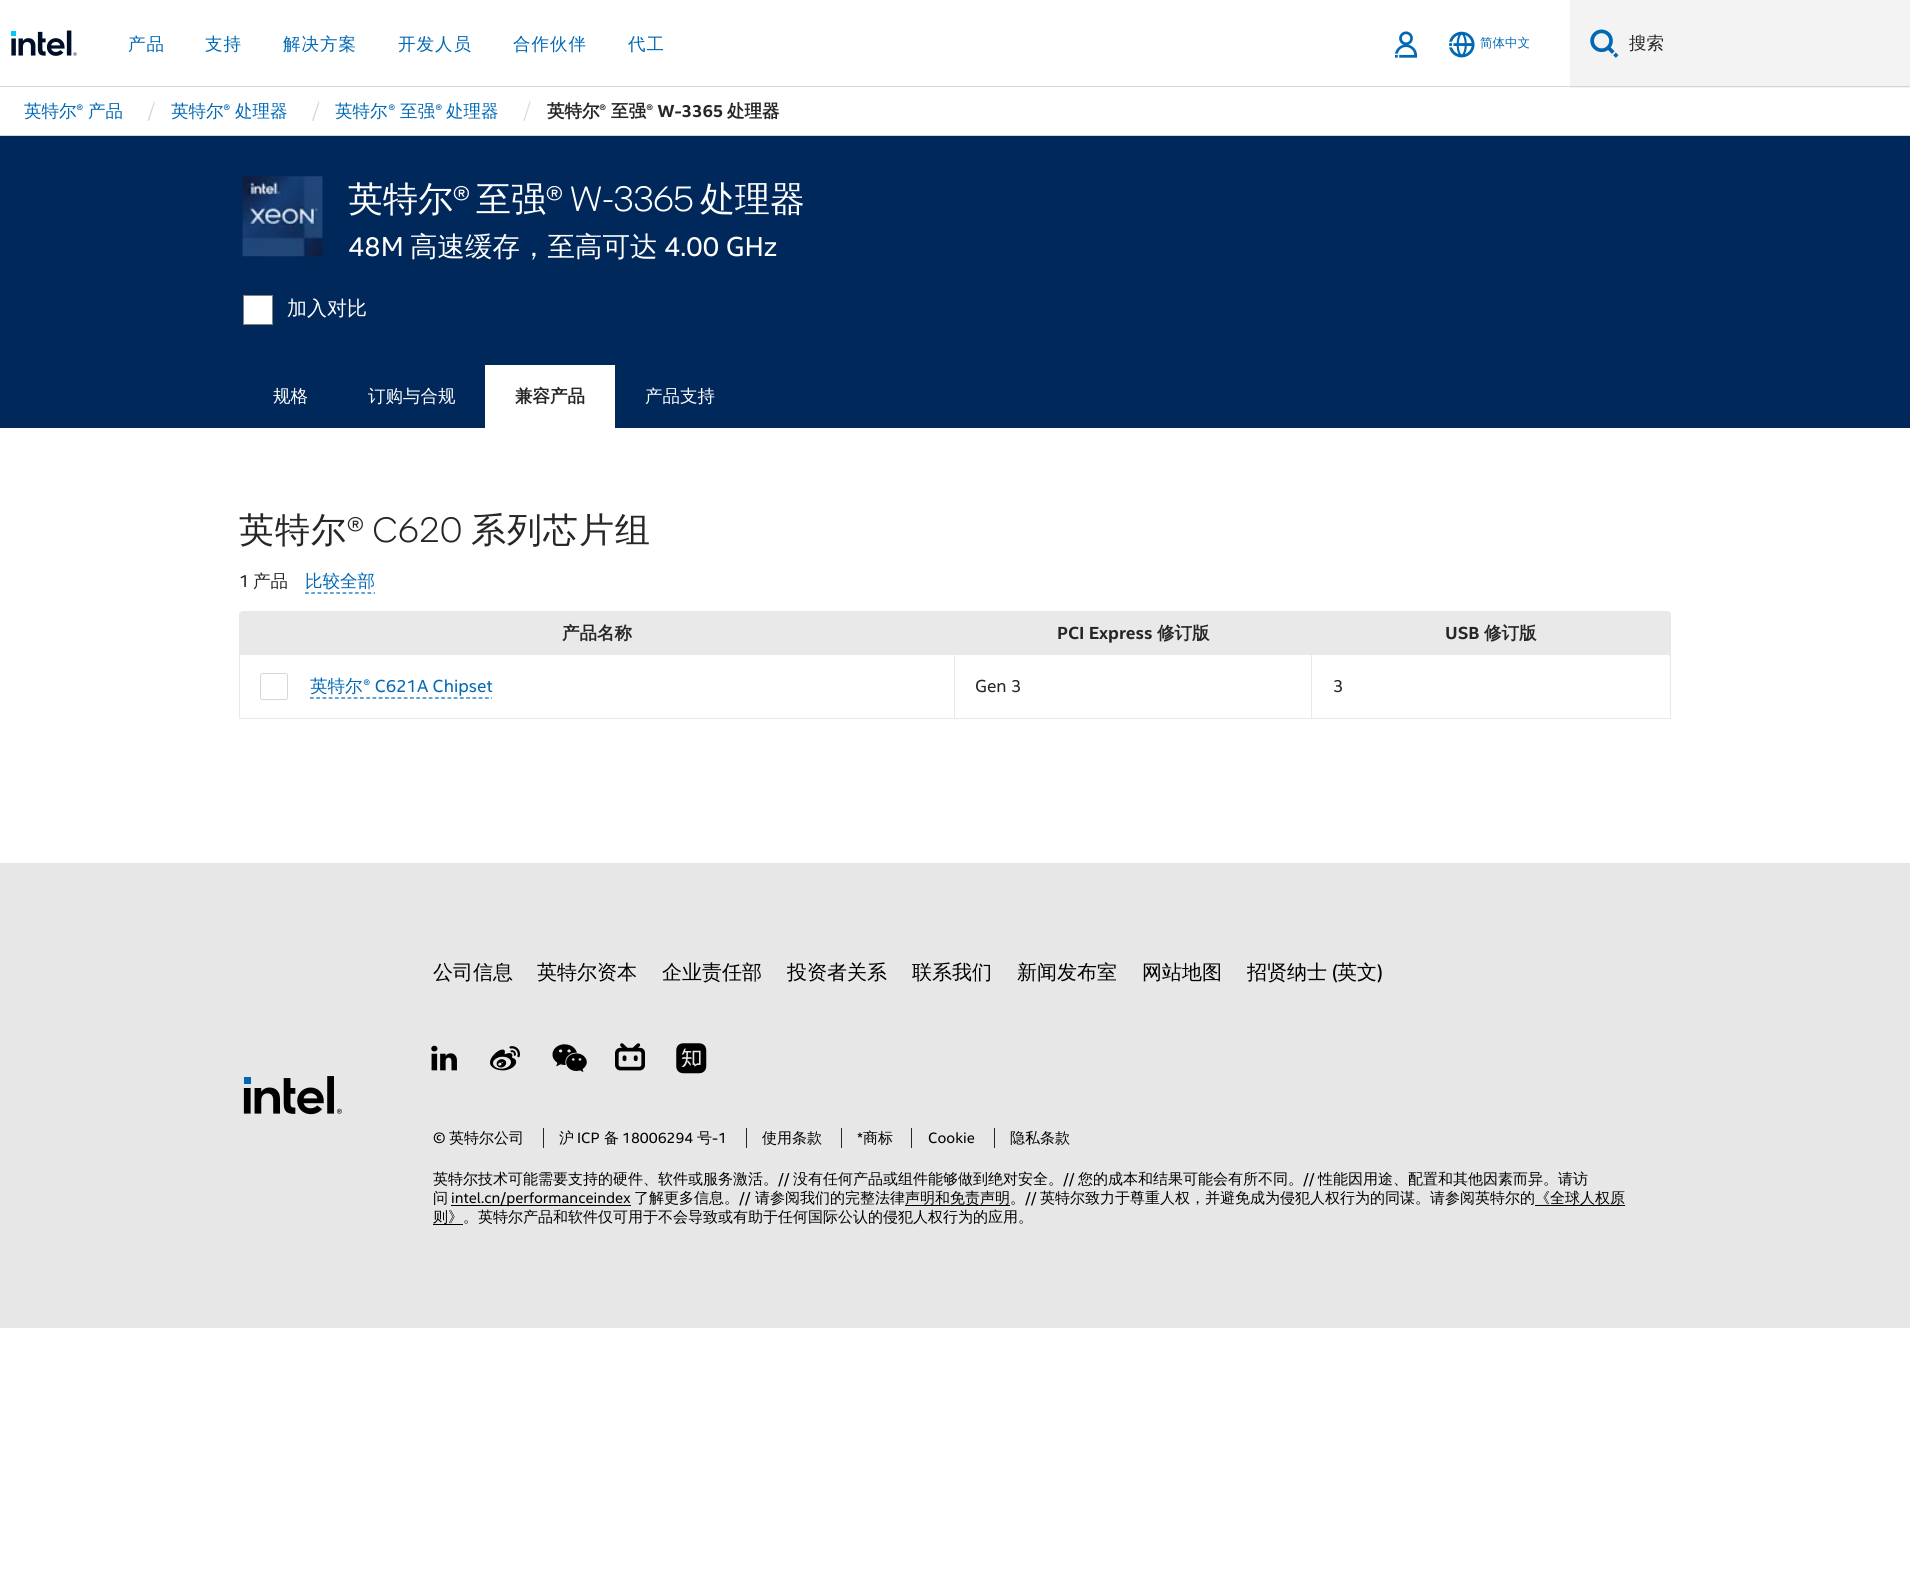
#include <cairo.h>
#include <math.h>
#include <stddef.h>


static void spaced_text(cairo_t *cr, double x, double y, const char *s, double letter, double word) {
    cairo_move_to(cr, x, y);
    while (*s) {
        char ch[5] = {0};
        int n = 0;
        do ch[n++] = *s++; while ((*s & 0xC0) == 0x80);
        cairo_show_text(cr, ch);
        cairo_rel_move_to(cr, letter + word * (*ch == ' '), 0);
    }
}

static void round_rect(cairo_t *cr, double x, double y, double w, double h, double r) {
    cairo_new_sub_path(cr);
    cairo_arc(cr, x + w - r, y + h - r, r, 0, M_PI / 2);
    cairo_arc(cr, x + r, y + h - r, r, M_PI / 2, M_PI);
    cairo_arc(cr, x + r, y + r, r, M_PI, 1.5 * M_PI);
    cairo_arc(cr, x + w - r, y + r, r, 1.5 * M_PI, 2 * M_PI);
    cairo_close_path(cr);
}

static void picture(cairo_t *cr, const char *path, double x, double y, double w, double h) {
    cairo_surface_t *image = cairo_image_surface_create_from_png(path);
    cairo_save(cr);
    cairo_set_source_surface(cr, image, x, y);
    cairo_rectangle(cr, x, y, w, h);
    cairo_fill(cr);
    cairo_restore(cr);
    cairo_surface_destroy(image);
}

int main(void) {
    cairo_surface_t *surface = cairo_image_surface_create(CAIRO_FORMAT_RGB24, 1910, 1596);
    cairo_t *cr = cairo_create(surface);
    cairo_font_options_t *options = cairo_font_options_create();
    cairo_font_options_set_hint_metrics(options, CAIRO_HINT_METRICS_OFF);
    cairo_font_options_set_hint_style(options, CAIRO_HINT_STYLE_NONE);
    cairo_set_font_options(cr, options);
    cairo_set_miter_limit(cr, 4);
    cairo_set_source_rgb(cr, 1, 1, 1);
    cairo_paint(cr);
    cairo_set_source_rgb(cr, 0.843, 0.843, 0.843);
    cairo_rectangle(cr, 0, 86, 1570, 1);
    cairo_fill(cr);
    picture(cr, "img1.png", 11, 30, 66, 26);
    cairo_select_font_face(cr, "WenQuanYi Zen Hei Medium", CAIRO_FONT_SLANT_NORMAL, CAIRO_FONT_WEIGHT_NORMAL);
    cairo_set_font_size(cr, 17.5);
    cairo_set_source_rgb(cr, 0, 0.408, 0.71);
    spaced_text(cr, 128, 50, "产品", 1, 0);
    spaced_text(cr, 205, 50, "支持", 1, 0);
    spaced_text(cr, 283, 50, "解决方案", 1, 0);
    spaced_text(cr, 398, 50, "开发人员", 1, 0);
    spaced_text(cr, 513, 50, "合作伙伴", 1, 0);
    spaced_text(cr, 628, 50, "代工", 1, 0);
    picture(cr, "img2.png", 1395, 31, 23, 27);
    picture(cr, "img3.png", 1449, 31, 26, 27);
    cairo_set_font_size(cr, 12.5);
    cairo_move_to(cr, 1480, 47);
    cairo_show_text(cr, "简体中文");
    cairo_set_source_rgb(cr, 0.953, 0.953, 0.953);
    cairo_rectangle(cr, 1570, 0, 340, 88);
    cairo_fill(cr);
    cairo_set_source_rgb(cr, 0.843, 0.843, 0.843);
    cairo_rectangle(cr, 1570, 86, 340, 1);
    cairo_fill(cr);
    picture(cr, "img4.png", 1590, 29, 29, 29);
    cairo_set_font_size(cr, 17.5);
    cairo_set_source_rgb(cr, 0.149, 0.149, 0.149);
    cairo_move_to(cr, 1629, 49);
    cairo_show_text(cr, "搜索");
    cairo_set_source_rgb(cr, 0.843, 0.843, 0.843);
    cairo_rectangle(cr, 0, 135, 1910, 1);
    cairo_fill(cr);
    cairo_set_source_rgb(cr, 0, 0.408, 0.71);
    cairo_move_to(cr, 24, 117);
    cairo_show_text(cr, "英特尔");
    cairo_select_font_face(cr, "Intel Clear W", CAIRO_FONT_SLANT_NORMAL, CAIRO_FONT_WEIGHT_NORMAL);
    cairo_move_to(cr, 76, 117);
    cairo_show_text(cr, "®");
    cairo_select_font_face(cr, "WenQuanYi Zen Hei Medium", CAIRO_FONT_SLANT_NORMAL, CAIRO_FONT_WEIGHT_NORMAL);
    cairo_move_to(cr, 88, 117);
    cairo_show_text(cr, "产品");
    cairo_set_source_rgb(cr, 0.843, 0.843, 0.843);
    cairo_new_path(cr);
    cairo_move_to(cr, 154, 101.5);
    cairo_line_to(cr, 155, 102);
    cairo_line_to(cr, 149, 121);
    cairo_line_to(cr, 147.5, 120.5);
    cairo_close_path(cr);
    cairo_fill(cr);
    cairo_set_source_rgb(cr, 0, 0.408, 0.71);
    cairo_move_to(cr, 171, 117);
    cairo_show_text(cr, "英特尔");
    cairo_select_font_face(cr, "Intel Clear W", CAIRO_FONT_SLANT_NORMAL, CAIRO_FONT_WEIGHT_NORMAL);
    cairo_move_to(cr, 223, 117);
    cairo_show_text(cr, "®");
    cairo_select_font_face(cr, "WenQuanYi Zen Hei Medium", CAIRO_FONT_SLANT_NORMAL, CAIRO_FONT_WEIGHT_NORMAL);
    cairo_move_to(cr, 235, 117);
    cairo_show_text(cr, "处理器");
    cairo_set_source_rgb(cr, 0.843, 0.843, 0.843);
    cairo_new_path(cr);
    cairo_move_to(cr, 318.5, 101.5);
    cairo_line_to(cr, 319.5, 102);
    cairo_line_to(cr, 313.5, 121);
    cairo_line_to(cr, 312, 120.5);
    cairo_close_path(cr);
    cairo_fill(cr);
    cairo_set_source_rgb(cr, 0, 0.408, 0.71);
    cairo_move_to(cr, 335, 117);
    cairo_show_text(cr, "英特尔");
    cairo_select_font_face(cr, "Intel Clear W", CAIRO_FONT_SLANT_NORMAL, CAIRO_FONT_WEIGHT_NORMAL);
    cairo_move_to(cr, 388, 117);
    cairo_show_text(cr, "®");
    cairo_select_font_face(cr, "WenQuanYi Zen Hei Medium", CAIRO_FONT_SLANT_NORMAL, CAIRO_FONT_WEIGHT_NORMAL);
    cairo_move_to(cr, 400, 117);
    cairo_show_text(cr, "至强");
    cairo_select_font_face(cr, "Intel Clear W", CAIRO_FONT_SLANT_NORMAL, CAIRO_FONT_WEIGHT_NORMAL);
    cairo_move_to(cr, 435, 117);
    cairo_show_text(cr, "®");
    cairo_select_font_face(cr, "WenQuanYi Zen Hei Medium", CAIRO_FONT_SLANT_NORMAL, CAIRO_FONT_WEIGHT_NORMAL);
    cairo_move_to(cr, 446, 117);
    cairo_show_text(cr, "处理器");
    cairo_set_source_rgb(cr, 0.843, 0.843, 0.843);
    cairo_new_path(cr);
    cairo_move_to(cr, 529.5, 101.5);
    cairo_line_to(cr, 530.5, 102);
    cairo_line_to(cr, 524.5, 121);
    cairo_line_to(cr, 523.5, 120.5);
    cairo_close_path(cr);
    cairo_fill(cr);
    cairo_select_font_face(cr, "WenQuanYi Zen Hei", CAIRO_FONT_SLANT_NORMAL, CAIRO_FONT_WEIGHT_BOLD);
    cairo_set_source_rgb(cr, 0.149, 0.149, 0.149);
    cairo_move_to(cr, 547, 117);
    cairo_show_text(cr, "英特尔");
    cairo_select_font_face(cr, "Intel Clear W", CAIRO_FONT_SLANT_NORMAL, CAIRO_FONT_WEIGHT_BOLD);
    cairo_move_to(cr, 599, 117);
    cairo_show_text(cr, "®");
    cairo_select_font_face(cr, "WenQuanYi Zen Hei", CAIRO_FONT_SLANT_NORMAL, CAIRO_FONT_WEIGHT_BOLD);
    cairo_move_to(cr, 611, 117);
    cairo_show_text(cr, "至强");
    cairo_select_font_face(cr, "Intel Clear W", CAIRO_FONT_SLANT_NORMAL, CAIRO_FONT_WEIGHT_BOLD);
    cairo_move_to(cr, 646, 117);
    cairo_show_text(cr, "® W-3365");
    cairo_select_font_face(cr, "WenQuanYi Zen Hei", CAIRO_FONT_SLANT_NORMAL, CAIRO_FONT_WEIGHT_BOLD);
    cairo_move_to(cr, 727, 117);
    cairo_show_text(cr, "处理器");
    cairo_set_source_rgb(cr, 0, 0.157, 0.353);
    cairo_rectangle(cr, 0, 136, 1910, 292);
    cairo_fill(cr);
    picture(cr, "img5.png", 242, 176, 81, 81);
    cairo_select_font_face(cr, "WenQuanYi Zen Hei Medium", CAIRO_FONT_SLANT_NORMAL, CAIRO_FONT_WEIGHT_NORMAL);
    cairo_set_font_size(cr, 35);
    cairo_set_source_rgb(cr, 1, 1, 1);
    cairo_move_to(cr, 348, 211);
    cairo_show_text(cr, "英特尔");
    cairo_select_font_face(cr, "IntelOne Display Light", CAIRO_FONT_SLANT_NORMAL, CAIRO_FONT_WEIGHT_NORMAL);
    cairo_move_to(cr, 453, 211);
    cairo_show_text(cr, "®");
    cairo_select_font_face(cr, "WenQuanYi Zen Hei Medium", CAIRO_FONT_SLANT_NORMAL, CAIRO_FONT_WEIGHT_NORMAL);
    cairo_move_to(cr, 476, 211);
    cairo_show_text(cr, "至强");
    cairo_select_font_face(cr, "IntelOne Display Light", CAIRO_FONT_SLANT_NORMAL, CAIRO_FONT_WEIGHT_NORMAL);
    cairo_move_to(cr, 546, 211);
    cairo_show_text(cr, "® W-3365");
    cairo_select_font_face(cr, "WenQuanYi Zen Hei Medium", CAIRO_FONT_SLANT_NORMAL, CAIRO_FONT_WEIGHT_NORMAL);
    cairo_move_to(cr, 700, 211);
    cairo_show_text(cr, "处理器");
    cairo_select_font_face(cr, "Intel Clear W", CAIRO_FONT_SLANT_NORMAL, CAIRO_FONT_WEIGHT_NORMAL);
    cairo_set_font_size(cr, 27.5);
    cairo_move_to(cr, 348, 256);
    cairo_show_text(cr, "48M");
    cairo_select_font_face(cr, "WenQuanYi Zen Hei Medium", CAIRO_FONT_SLANT_NORMAL, CAIRO_FONT_WEIGHT_NORMAL);
    cairo_move_to(cr, 410, 256);
    cairo_show_text(cr, "高速缓存，至高可达");
    cairo_select_font_face(cr, "Intel Clear W", CAIRO_FONT_SLANT_NORMAL, CAIRO_FONT_WEIGHT_NORMAL);
    cairo_move_to(cr, 664, 256);
    cairo_show_text(cr, "4.00 GHz");
    cairo_rectangle(cr, 243.5, 295.5, 29, 29);
    cairo_fill_preserve(cr);
    cairo_set_source_rgb(cr, 0.502, 0.502, 0.502);
    cairo_set_line_width(cr, 1);
    cairo_stroke(cr);
    cairo_select_font_face(cr, "WenQuanYi Zen Hei Medium", CAIRO_FONT_SLANT_NORMAL, CAIRO_FONT_WEIGHT_NORMAL);
    cairo_set_font_size(cr, 20);
    cairo_set_source_rgb(cr, 1, 1, 1);
    cairo_move_to(cr, 287, 315);
    cairo_show_text(cr, "加入对比");
    cairo_set_font_size(cr, 17.5);
    cairo_move_to(cr, 273, 402);
    cairo_show_text(cr, "规格");
    cairo_move_to(cr, 368, 402);
    cairo_show_text(cr, "订购与合规");
    cairo_rectangle(cr, 485, 365, 130, 63);
    cairo_fill(cr);
    cairo_select_font_face(cr, "WenQuanYi Zen Hei", CAIRO_FONT_SLANT_NORMAL, CAIRO_FONT_WEIGHT_BOLD);
    cairo_set_source_rgb(cr, 0.149, 0.149, 0.149);
    cairo_move_to(cr, 515, 402);
    cairo_show_text(cr, "兼容产品");
    cairo_select_font_face(cr, "WenQuanYi Zen Hei Medium", CAIRO_FONT_SLANT_NORMAL, CAIRO_FONT_WEIGHT_NORMAL);
    cairo_set_source_rgb(cr, 1, 1, 1);
    cairo_move_to(cr, 645, 402);
    cairo_show_text(cr, "产品支持");
    cairo_set_font_size(cr, 35);
    cairo_set_source_rgb(cr, 0.149, 0.149, 0.149);
    spaced_text(cr, 239, 542, "英特尔", 1, 0);
    cairo_select_font_face(cr, "IntelOne Display Light", CAIRO_FONT_SLANT_NORMAL, CAIRO_FONT_WEIGHT_NORMAL);
    spaced_text(cr, 347, 542, "® C620", 1, 0);
    cairo_select_font_face(cr, "WenQuanYi Zen Hei Medium", CAIRO_FONT_SLANT_NORMAL, CAIRO_FONT_WEIGHT_NORMAL);
    spaced_text(cr, 471, 542, "系列芯片组", 1, 0);
    cairo_select_font_face(cr, "Intel Clear W", CAIRO_FONT_SLANT_NORMAL, CAIRO_FONT_WEIGHT_NORMAL);
    cairo_set_font_size(cr, 17.5);
    cairo_move_to(cr, 239, 587);
    cairo_show_text(cr, "1");
    cairo_select_font_face(cr, "WenQuanYi Zen Hei Medium", CAIRO_FONT_SLANT_NORMAL, CAIRO_FONT_WEIGHT_NORMAL);
    cairo_move_to(cr, 253, 587);
    cairo_show_text(cr, "产品");
    cairo_set_source_rgb(cr, 0, 0.408, 0.71);
    cairo_move_to(cr, 305, 587);
    cairo_show_text(cr, "比较全部");
    cairo_new_path(cr);
    cairo_move_to(cr, 305, 593);
    cairo_line_to(cr, 375, 593);
    cairo_set_line_width(cr, 1.2);
    cairo_set_dash(cr, (double[]){3.75, 2.5}, 2, 0);
    cairo_stroke(cr);
    cairo_save(cr);
    round_rect(cr, 239, 611, 1432, 135, 4);
    cairo_clip(cr);
    cairo_set_source_rgb(cr, 0.914, 0.914, 0.914);
    cairo_rectangle(cr, 1670, 611, 1, 108);
    cairo_fill(cr);
    cairo_restore(cr);
    cairo_set_source_rgb(cr, 0.914, 0.914, 0.914);
    cairo_rectangle(cr, 239, 718, 1432, 1);
    cairo_fill(cr);
    cairo_save(cr);
    round_rect(cr, 239, 611, 1432, 135, 4);
    cairo_clip(cr);
    cairo_rectangle(cr, 239, 611, 1, 108);
    cairo_fill(cr);
    cairo_restore(cr);
    cairo_rectangle(cr, 954, 654, 1, 65);
    cairo_fill(cr);
    cairo_save(cr);
    round_rect(cr, 239, 611, 1432, 135, 4);
    cairo_clip(cr);
    cairo_rectangle(cr, 240, 611, 715, 44);
    cairo_fill(cr);
    cairo_restore(cr);
    cairo_select_font_face(cr, "WenQuanYi Zen Hei", CAIRO_FONT_SLANT_NORMAL, CAIRO_FONT_WEIGHT_BOLD);
    cairo_set_source_rgb(cr, 0.149, 0.149, 0.149);
    cairo_move_to(cr, 562, 639);
    cairo_show_text(cr, "产品名称");
    cairo_set_source_rgb(cr, 0.914, 0.914, 0.914);
    cairo_rectangle(cr, 1311, 654, 1, 65);
    cairo_fill(cr);
    cairo_rectangle(cr, 955, 611, 358, 44);
    cairo_fill(cr);
    cairo_select_font_face(cr, "Intel Clear W", CAIRO_FONT_SLANT_NORMAL, CAIRO_FONT_WEIGHT_BOLD);
    cairo_set_source_rgb(cr, 0.149, 0.149, 0.149);
    cairo_move_to(cr, 1057, 639);
    cairo_show_text(cr, "PCI Express");
    cairo_select_font_face(cr, "WenQuanYi Zen Hei", CAIRO_FONT_SLANT_NORMAL, CAIRO_FONT_WEIGHT_BOLD);
    cairo_move_to(cr, 1157, 639);
    cairo_show_text(cr, "修订版");
    cairo_save(cr);
    round_rect(cr, 239, 611, 1432, 135, 4);
    cairo_clip(cr);
    cairo_set_source_rgb(cr, 0.914, 0.914, 0.914);
    cairo_rectangle(cr, 1669, 611, 2, 45);
    cairo_fill(cr);
    cairo_rectangle(cr, 1313, 611, 357, 44);
    cairo_fill(cr);
    cairo_restore(cr);
    cairo_select_font_face(cr, "Intel Clear W", CAIRO_FONT_SLANT_NORMAL, CAIRO_FONT_WEIGHT_BOLD);
    cairo_move_to(cr, 1445, 639);
    cairo_show_text(cr, "USB");
    cairo_select_font_face(cr, "WenQuanYi Zen Hei", CAIRO_FONT_SLANT_NORMAL, CAIRO_FONT_WEIGHT_BOLD);
    cairo_move_to(cr, 1484, 639);
    cairo_show_text(cr, "修订版");
    round_rect(cr, 260.5, 673.5, 27, 26, 2);
    cairo_set_source_rgb(cr, 0.843, 0.843, 0.843);
    cairo_set_line_width(cr, 1);
    cairo_set_dash(cr, NULL, 0, 0);
    cairo_stroke(cr);
    cairo_select_font_face(cr, "WenQuanYi Zen Hei Medium", CAIRO_FONT_SLANT_NORMAL, CAIRO_FONT_WEIGHT_NORMAL);
    cairo_set_source_rgb(cr, 0, 0.408, 0.71);
    cairo_move_to(cr, 310, 692);
    cairo_show_text(cr, "英特尔");
    cairo_select_font_face(cr, "Intel Clear W", CAIRO_FONT_SLANT_NORMAL, CAIRO_FONT_WEIGHT_NORMAL);
    cairo_move_to(cr, 363, 692);
    cairo_show_text(cr, "® C621A Chipset");
    cairo_new_path(cr);
    cairo_move_to(cr, 310, 698);
    cairo_line_to(cr, 492, 698);
    cairo_set_line_width(cr, 1.2);
    cairo_set_dash(cr, (double[]){3.75, 2.5}, 2, 0);
    cairo_stroke(cr);
    cairo_set_source_rgb(cr, 0.149, 0.149, 0.149);
    cairo_move_to(cr, 975, 692);
    cairo_show_text(cr, "Gen 3");
    cairo_move_to(cr, 1333, 692);
    cairo_show_text(cr, "3");
    cairo_set_source_rgb(cr, 0.906, 0.906, 0.906);
    cairo_rectangle(cr, 0, 863, 1910, 465);
    cairo_fill(cr);
    picture(cr, "img6.png", 243, 1076, 99, 39);
    cairo_select_font_face(cr, "WenQuanYi Zen Hei Medium", CAIRO_FONT_SLANT_NORMAL, CAIRO_FONT_WEIGHT_NORMAL);
    cairo_set_font_size(cr, 20);
    cairo_set_source_rgb(cr, 0, 0, 0);
    cairo_move_to(cr, 433, 979);
    cairo_show_text(cr, "公司信息");
    cairo_move_to(cr, 537, 979);
    cairo_show_text(cr, "英特尔资本");
    cairo_move_to(cr, 662, 979);
    cairo_show_text(cr, "企业责任部");
    cairo_move_to(cr, 787, 979);
    cairo_show_text(cr, "投资者关系");
    cairo_move_to(cr, 912, 979);
    cairo_show_text(cr, "联系我们");
    cairo_move_to(cr, 1017, 979);
    cairo_show_text(cr, "新闻发布室");
    cairo_move_to(cr, 1142, 979);
    cairo_show_text(cr, "网站地图");
    cairo_move_to(cr, 1247, 979);
    cairo_show_text(cr, "招贤纳士");
    cairo_select_font_face(cr, "Intel Clear W", CAIRO_FONT_SLANT_NORMAL, CAIRO_FONT_WEIGHT_NORMAL);
    cairo_move_to(cr, 1332, 979);
    cairo_show_text(cr, "(");
    cairo_select_font_face(cr, "WenQuanYi Zen Hei Medium", CAIRO_FONT_SLANT_NORMAL, CAIRO_FONT_WEIGHT_NORMAL);
    cairo_move_to(cr, 1337, 979);
    cairo_show_text(cr, "英文");
    cairo_select_font_face(cr, "Intel Clear W", CAIRO_FONT_SLANT_NORMAL, CAIRO_FONT_WEIGHT_NORMAL);
    cairo_move_to(cr, 1377, 979);
    cairo_show_text(cr, ")");
    picture(cr, "img7.png", 431, 1045, 26, 26);
    picture(cr, "img8.png", 490, 1046, 30, 25);
    picture(cr, "img9.png", 552, 1044, 35, 29);
    picture(cr, "img10.png", 615, 1043, 30, 28);
    picture(cr, "img11.png", 676, 1043, 31, 31);
    cairo_set_font_size(cr, 15);
    cairo_move_to(cr, 433, 1143);
    cairo_show_text(cr, "©");
    cairo_select_font_face(cr, "WenQuanYi Zen Hei Medium", CAIRO_FONT_SLANT_NORMAL, CAIRO_FONT_WEIGHT_NORMAL);
    cairo_move_to(cr, 449, 1143);
    cairo_show_text(cr, "英特尔公司");
    cairo_move_to(cr, 559, 1143);
    cairo_show_text(cr, "沪");
    cairo_set_source_rgb(cr, 0.149, 0.149, 0.149);
    cairo_rectangle(cr, 543, 1128, 1, 20);
    cairo_fill(cr);
    cairo_select_font_face(cr, "Intel Clear W", CAIRO_FONT_SLANT_NORMAL, CAIRO_FONT_WEIGHT_NORMAL);
    cairo_set_source_rgb(cr, 0, 0, 0);
    cairo_move_to(cr, 577, 1143);
    cairo_show_text(cr, "ICP");
    cairo_select_font_face(cr, "WenQuanYi Zen Hei Medium", CAIRO_FONT_SLANT_NORMAL, CAIRO_FONT_WEIGHT_NORMAL);
    cairo_move_to(cr, 604, 1143);
    cairo_show_text(cr, "备");
    cairo_select_font_face(cr, "Intel Clear W", CAIRO_FONT_SLANT_NORMAL, CAIRO_FONT_WEIGHT_NORMAL);
    cairo_move_to(cr, 622, 1143);
    cairo_show_text(cr, "18006294");
    cairo_select_font_face(cr, "WenQuanYi Zen Hei Medium", CAIRO_FONT_SLANT_NORMAL, CAIRO_FONT_WEIGHT_NORMAL);
    cairo_move_to(cr, 697, 1143);
    cairo_show_text(cr, "号");
    cairo_select_font_face(cr, "Intel Clear W", CAIRO_FONT_SLANT_NORMAL, CAIRO_FONT_WEIGHT_NORMAL);
    cairo_move_to(cr, 712, 1143);
    cairo_show_text(cr, "-1");
    cairo_select_font_face(cr, "WenQuanYi Zen Hei Medium", CAIRO_FONT_SLANT_NORMAL, CAIRO_FONT_WEIGHT_NORMAL);
    cairo_move_to(cr, 762, 1143);
    cairo_show_text(cr, "使用条款");
    cairo_set_source_rgb(cr, 0.149, 0.149, 0.149);
    cairo_rectangle(cr, 746, 1128, 1, 20);
    cairo_fill(cr);
    cairo_select_font_face(cr, "Intel Clear W", CAIRO_FONT_SLANT_NORMAL, CAIRO_FONT_WEIGHT_NORMAL);
    cairo_set_source_rgb(cr, 0, 0, 0);
    cairo_move_to(cr, 857, 1143);
    cairo_show_text(cr, "*");
    cairo_set_source_rgb(cr, 0.149, 0.149, 0.149);
    cairo_rectangle(cr, 841, 1128, 1, 20);
    cairo_fill(cr);
    cairo_select_font_face(cr, "WenQuanYi Zen Hei Medium", CAIRO_FONT_SLANT_NORMAL, CAIRO_FONT_WEIGHT_NORMAL);
    cairo_set_source_rgb(cr, 0, 0, 0);
    cairo_move_to(cr, 863, 1143);
    cairo_show_text(cr, "商标");
    cairo_select_font_face(cr, "Intel Clear W", CAIRO_FONT_SLANT_NORMAL, CAIRO_FONT_WEIGHT_NORMAL);
    cairo_move_to(cr, 928, 1143);
    cairo_show_text(cr, "Cookie");
    cairo_set_source_rgb(cr, 0.149, 0.149, 0.149);
    cairo_rectangle(cr, 911, 1128, 1, 20);
    cairo_fill(cr);
    cairo_select_font_face(cr, "WenQuanYi Zen Hei Medium", CAIRO_FONT_SLANT_NORMAL, CAIRO_FONT_WEIGHT_NORMAL);
    cairo_set_source_rgb(cr, 0, 0, 0);
    cairo_move_to(cr, 1010, 1143);
    cairo_show_text(cr, "隐私条款");
    cairo_set_source_rgb(cr, 0.149, 0.149, 0.149);
    cairo_rectangle(cr, 994, 1128, 1, 20);
    cairo_fill(cr);
    cairo_set_source_rgb(cr, 0, 0, 0);
    cairo_move_to(cr, 433, 1184);
    cairo_show_text(cr, "英特尔技术可能需要支持的硬件、软件或服务激活。");
    cairo_select_font_face(cr, "Intel Clear W", CAIRO_FONT_SLANT_NORMAL, CAIRO_FONT_WEIGHT_NORMAL);
    cairo_move_to(cr, 778, 1184);
    cairo_show_text(cr, "//");
    cairo_select_font_face(cr, "WenQuanYi Zen Hei Medium", CAIRO_FONT_SLANT_NORMAL, CAIRO_FONT_WEIGHT_NORMAL);
    cairo_move_to(cr, 793, 1184);
    cairo_show_text(cr, "没有任何产品或组件能够做到绝对安全。");
    cairo_select_font_face(cr, "Intel Clear W", CAIRO_FONT_SLANT_NORMAL, CAIRO_FONT_WEIGHT_NORMAL);
    cairo_move_to(cr, 1063, 1184);
    cairo_show_text(cr, "//");
    cairo_select_font_face(cr, "WenQuanYi Zen Hei Medium", CAIRO_FONT_SLANT_NORMAL, CAIRO_FONT_WEIGHT_NORMAL);
    cairo_move_to(cr, 1078, 1184);
    cairo_show_text(cr, "您的成本和结果可能会有所不同。");
    cairo_select_font_face(cr, "Intel Clear W", CAIRO_FONT_SLANT_NORMAL, CAIRO_FONT_WEIGHT_NORMAL);
    cairo_move_to(cr, 1303, 1184);
    cairo_show_text(cr, "//");
    cairo_select_font_face(cr, "WenQuanYi Zen Hei Medium", CAIRO_FONT_SLANT_NORMAL, CAIRO_FONT_WEIGHT_NORMAL);
    cairo_move_to(cr, 1318, 1184);
    cairo_show_text(cr, "性能因用途、配置和其他因素而异。请访");
    cairo_move_to(cr, 433, 1203);
    cairo_show_text(cr, "问");
    cairo_rectangle(cr, 451, 1205, 180, 1);
    cairo_fill(cr);
    cairo_select_font_face(cr, "Intel Clear W", CAIRO_FONT_SLANT_NORMAL, CAIRO_FONT_WEIGHT_NORMAL);
    cairo_move_to(cr, 451, 1203);
    cairo_show_text(cr, "intel.cn/performanceindex");
    cairo_select_font_face(cr, "WenQuanYi Zen Hei Medium", CAIRO_FONT_SLANT_NORMAL, CAIRO_FONT_WEIGHT_NORMAL);
    cairo_move_to(cr, 634, 1203);
    cairo_show_text(cr, "了解更多信息。");
    cairo_select_font_face(cr, "Intel Clear W", CAIRO_FONT_SLANT_NORMAL, CAIRO_FONT_WEIGHT_NORMAL);
    cairo_move_to(cr, 739, 1203);
    cairo_show_text(cr, "//");
    cairo_select_font_face(cr, "WenQuanYi Zen Hei Medium", CAIRO_FONT_SLANT_NORMAL, CAIRO_FONT_WEIGHT_NORMAL);
    cairo_move_to(cr, 755, 1203);
    cairo_show_text(cr, "请参阅我们的完整法律");
    cairo_rectangle(cr, 905, 1205, 105, 1);
    cairo_fill(cr);
    cairo_move_to(cr, 905, 1203);
    cairo_show_text(cr, "声明和免责声明。");
    cairo_select_font_face(cr, "Intel Clear W", CAIRO_FONT_SLANT_NORMAL, CAIRO_FONT_WEIGHT_NORMAL);
    cairo_move_to(cr, 1025, 1203);
    cairo_show_text(cr, "//");
    cairo_select_font_face(cr, "WenQuanYi Zen Hei Medium", CAIRO_FONT_SLANT_NORMAL, CAIRO_FONT_WEIGHT_NORMAL);
    cairo_move_to(cr, 1040, 1203);
    cairo_show_text(cr, "英特尔致力于尊重人权，并避免成为侵犯人权行为的同谋。请参阅英特尔的");
    cairo_rectangle(cr, 1535, 1205, 90, 1);
    cairo_fill(cr);
    cairo_move_to(cr, 1535, 1203);
    cairo_show_text(cr, "《全球人权原");
    cairo_rectangle(cr, 433, 1224, 30, 1);
    cairo_fill(cr);
    cairo_move_to(cr, 433, 1222);
    cairo_show_text(cr, "则》。英特尔产品和软件仅可用于不会导致或有助于任何国际公认的侵犯人权行为的应用。");
    cairo_surface_write_to_png(surface, "page.png");
    cairo_font_options_destroy(options);
    cairo_destroy(cr);
    cairo_surface_destroy(surface);
    return 0;
}
